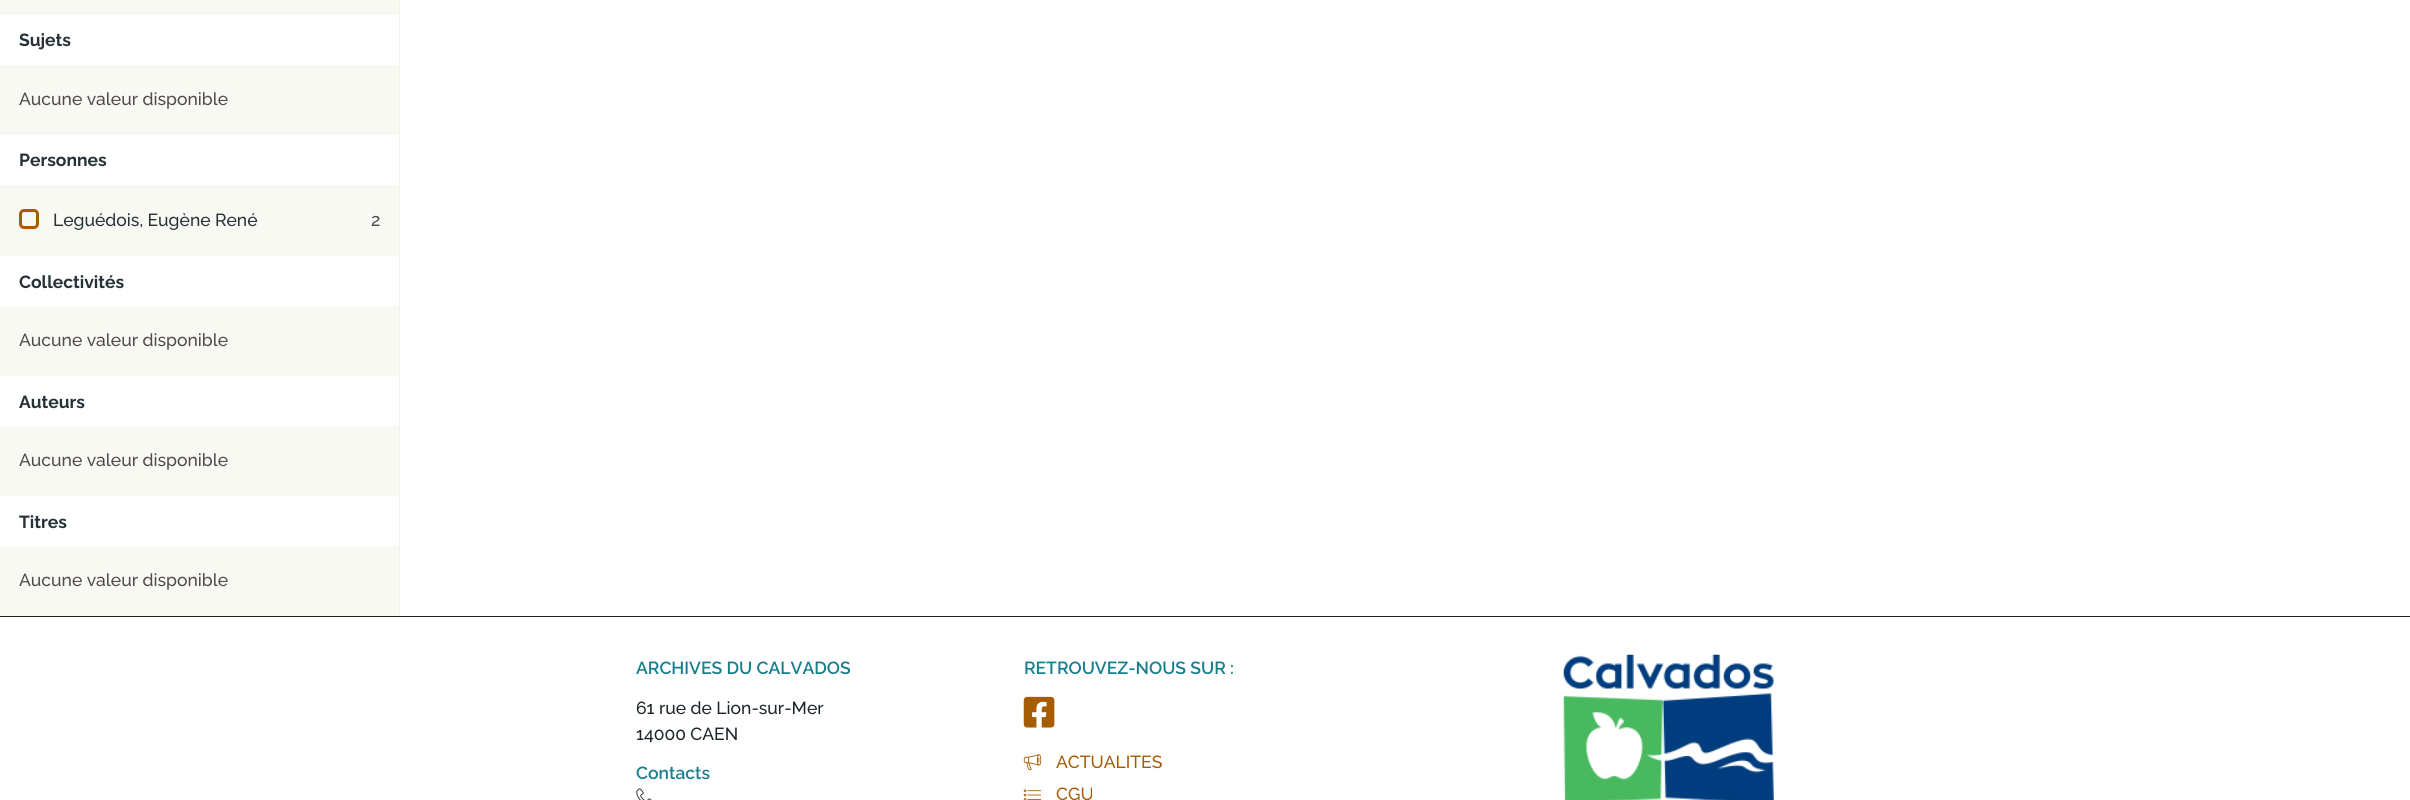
#include <cairo.h>
#include <math.h>
#include <stddef.h>


static void round_rect(cairo_t *cr, double x, double y, double w, double h, double r) {
    cairo_new_sub_path(cr);
    cairo_arc(cr, x + w - r, y + h - r, r, 0, M_PI / 2);
    cairo_arc(cr, x + r, y + h - r, r, M_PI / 2, M_PI);
    cairo_arc(cr, x + r, y + r, r, M_PI, 1.5 * M_PI);
    cairo_arc(cr, x + w - r, y + r, r, 1.5 * M_PI, 2 * M_PI);
    cairo_close_path(cr);
}

static void picture(cairo_t *cr, const char *path, double x, double y, double w, double h) {
    cairo_surface_t *image = cairo_image_surface_create_from_png(path);
    cairo_save(cr);
    cairo_set_source_surface(cr, image, x, y);
    cairo_rectangle(cr, x, y, w, h);
    cairo_fill(cr);
    cairo_restore(cr);
    cairo_surface_destroy(image);
}

int main(void) {
    cairo_surface_t *surface = cairo_image_surface_create(CAIRO_FORMAT_RGB24, 2410, 800);
    cairo_t *cr = cairo_create(surface);
    cairo_font_options_t *options = cairo_font_options_create();
    cairo_font_options_set_hint_metrics(options, CAIRO_HINT_METRICS_OFF);
    cairo_font_options_set_hint_style(options, CAIRO_HINT_STYLE_NONE);
    cairo_set_font_options(cr, options);
    cairo_set_miter_limit(cr, 4);
    cairo_set_source_rgb(cr, 1, 1, 1);
    cairo_paint(cr);
    cairo_set_source_rgb(cr, 0.957, 0.949, 0.902);
    cairo_rectangle(cr, 399, 0, 1, 616);
    cairo_fill(cr);
    cairo_set_source_rgb(cr, 0.973, 0.973, 0.957);
    cairo_rectangle(cr, 0, 0, 399, 15);
    cairo_fill(cr);
    cairo_rectangle(cr, 0, 65, 399, 70);
    cairo_fill(cr);
    cairo_select_font_face(cr, "Raleway", CAIRO_FONT_SLANT_NORMAL, CAIRO_FONT_WEIGHT_BOLD);
    cairo_set_font_size(cr, 17.5);
    cairo_set_source_rgb(cr, 0.149, 0.196, 0.22);
    cairo_move_to(cr, 19, 46);
    cairo_show_text(cr, "Sujets");
    cairo_select_font_face(cr, "Raleway Medium", CAIRO_FONT_SLANT_NORMAL, CAIRO_FONT_WEIGHT_NORMAL);
    cairo_set_source_rgb(cr, 0.314, 0.294, 0.286);
    cairo_move_to(cr, 19, 105);
    cairo_show_text(cr, "Aucune valeur disponible");
    cairo_set_source_rgb(cr, 0.973, 0.973, 0.957);
    cairo_rectangle(cr, 0, 185, 399, 71);
    cairo_fill(cr);
    cairo_select_font_face(cr, "Raleway", CAIRO_FONT_SLANT_NORMAL, CAIRO_FONT_WEIGHT_BOLD);
    cairo_set_source_rgb(cr, 0.149, 0.196, 0.22);
    cairo_move_to(cr, 19, 166);
    cairo_show_text(cr, "Personnes");
    round_rect(cr, 20.5, 210.5, 17, 17, 3.5);
    cairo_set_source_rgb(cr, 0.651, 0.361, 0.008);
    cairo_set_line_width(cr, 3);
    cairo_stroke(cr);
    cairo_select_font_face(cr, "Raleway Medium", CAIRO_FONT_SLANT_NORMAL, CAIRO_FONT_WEIGHT_NORMAL);
    cairo_set_source_rgb(cr, 0.149, 0.196, 0.22);
    cairo_move_to(cr, 53, 226);
    cairo_show_text(cr, "Leguédois, Eugène René");
    cairo_set_source_rgb(cr, 0.314, 0.294, 0.286);
    cairo_move_to(cr, 371, 226);
    cairo_show_text(cr, "2");
    cairo_set_source_rgb(cr, 0.973, 0.973, 0.957);
    cairo_rectangle(cr, 0, 306, 399, 70);
    cairo_fill(cr);
    cairo_select_font_face(cr, "Raleway", CAIRO_FONT_SLANT_NORMAL, CAIRO_FONT_WEIGHT_BOLD);
    cairo_set_source_rgb(cr, 0.149, 0.196, 0.22);
    cairo_move_to(cr, 19, 288);
    cairo_show_text(cr, "Collectivités");
    cairo_select_font_face(cr, "Raleway Medium", CAIRO_FONT_SLANT_NORMAL, CAIRO_FONT_WEIGHT_NORMAL);
    cairo_set_source_rgb(cr, 0.314, 0.294, 0.286);
    cairo_move_to(cr, 19, 346);
    cairo_show_text(cr, "Aucune valeur disponible");
    cairo_set_source_rgb(cr, 0.973, 0.973, 0.957);
    cairo_rectangle(cr, 0, 426, 399, 70);
    cairo_fill(cr);
    cairo_select_font_face(cr, "Raleway", CAIRO_FONT_SLANT_NORMAL, CAIRO_FONT_WEIGHT_BOLD);
    cairo_set_source_rgb(cr, 0.149, 0.196, 0.22);
    cairo_move_to(cr, 19, 408);
    cairo_show_text(cr, "Auteurs");
    cairo_select_font_face(cr, "Raleway Medium", CAIRO_FONT_SLANT_NORMAL, CAIRO_FONT_WEIGHT_NORMAL);
    cairo_set_source_rgb(cr, 0.314, 0.294, 0.286);
    cairo_move_to(cr, 19, 466);
    cairo_show_text(cr, "Aucune valeur disponible");
    cairo_set_source_rgb(cr, 0.973, 0.973, 0.957);
    cairo_rectangle(cr, 0, 546, 399, 70);
    cairo_fill(cr);
    cairo_select_font_face(cr, "Raleway", CAIRO_FONT_SLANT_NORMAL, CAIRO_FONT_WEIGHT_BOLD);
    cairo_set_source_rgb(cr, 0.149, 0.196, 0.22);
    cairo_move_to(cr, 19, 528);
    cairo_show_text(cr, "Titres");
    cairo_select_font_face(cr, "Raleway Medium", CAIRO_FONT_SLANT_NORMAL, CAIRO_FONT_WEIGHT_NORMAL);
    cairo_set_source_rgb(cr, 0.314, 0.294, 0.286);
    cairo_move_to(cr, 19, 586);
    cairo_show_text(cr, "Aucune valeur disponible");
    cairo_set_source_rgb(cr, 0.11, 0.145, 0.161);
    cairo_rectangle(cr, 0, 616, 2410, 1);
    cairo_fill(cr);
    cairo_select_font_face(cr, "Raleway SemiBold", CAIRO_FONT_SLANT_NORMAL, CAIRO_FONT_WEIGHT_NORMAL);
    cairo_set_source_rgb(cr, 0.09, 0.494, 0.561);
    cairo_move_to(cr, 636, 674);
    cairo_show_text(cr, "ARCHIVES DU CALVADOS");
    cairo_select_font_face(cr, "Raleway Medium", CAIRO_FONT_SLANT_NORMAL, CAIRO_FONT_WEIGHT_NORMAL);
    cairo_set_source_rgb(cr, 0.11, 0.145, 0.161);
    cairo_move_to(cr, 636, 714);
    cairo_show_text(cr, "61 rue de Lion-sur-Mer");
    cairo_move_to(cr, 636, 740);
    cairo_show_text(cr, "14000 CAEN");
    cairo_select_font_face(cr, "Raleway SemiBold", CAIRO_FONT_SLANT_NORMAL, CAIRO_FONT_WEIGHT_NORMAL);
    cairo_set_source_rgb(cr, 0.09, 0.494, 0.561);
    cairo_move_to(cr, 636, 779);
    cairo_show_text(cr, "Contacts");
    picture(cr, "img1.png", 636, 788, 16, 12);
    cairo_move_to(cr, 1024, 674);
    cairo_show_text(cr, "RETROUVEZ-NOUS SUR :");
    picture(cr, "img2.png", 1023, 696, 32, 32);
    picture(cr, "img3.png", 1023, 754, 19, 16);
    cairo_select_font_face(cr, "Raleway Medium", CAIRO_FONT_SLANT_NORMAL, CAIRO_FONT_WEIGHT_NORMAL);
    cairo_set_source_rgb(cr, 0.651, 0.361, 0.008);
    cairo_move_to(cr, 1056, 768);
    cairo_show_text(cr, "ACTUALITES");
    picture(cr, "img4.png", 1023, 789, 19, 11);
    cairo_move_to(cr, 1056, 800);
    cairo_show_text(cr, "CGU");
    picture(cr, "img5.png", 1563, 654, 211, 146);
    cairo_surface_write_to_png(surface, "page.png");
    cairo_font_options_destroy(options);
    cairo_destroy(cr);
    cairo_surface_destroy(surface);
    return 0;
}
